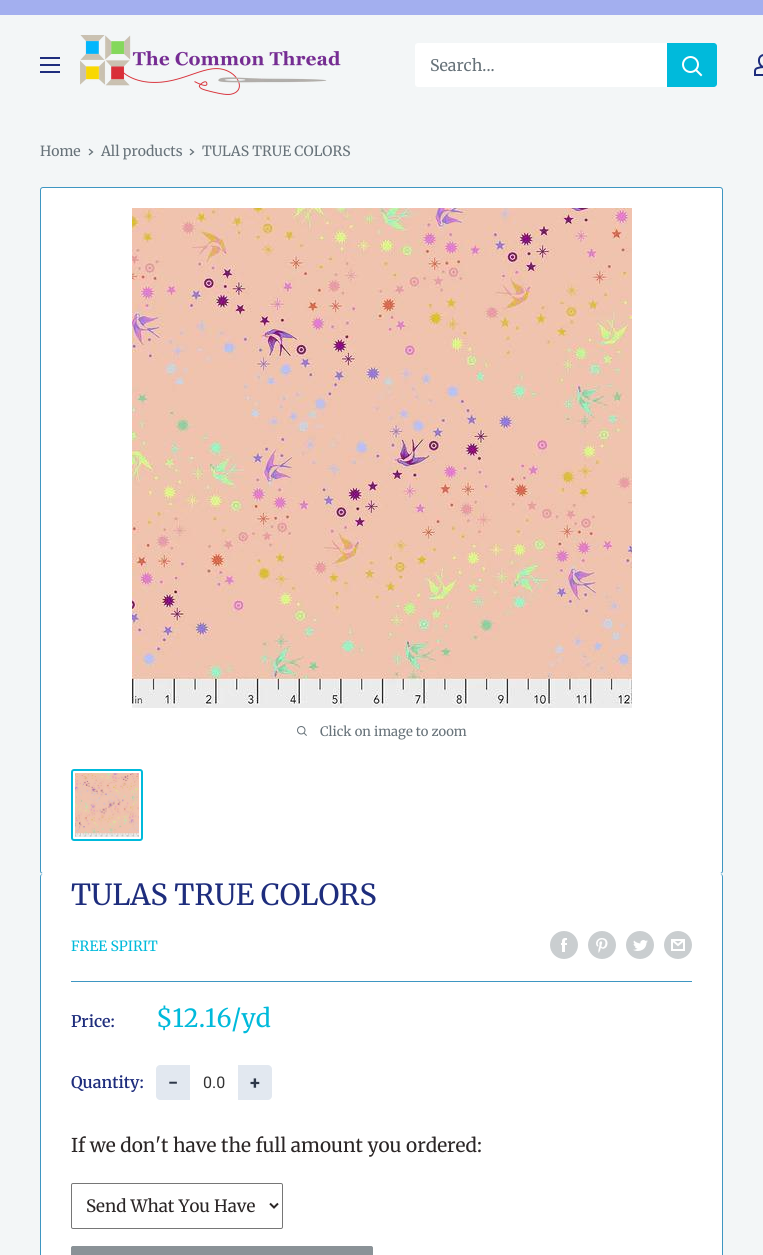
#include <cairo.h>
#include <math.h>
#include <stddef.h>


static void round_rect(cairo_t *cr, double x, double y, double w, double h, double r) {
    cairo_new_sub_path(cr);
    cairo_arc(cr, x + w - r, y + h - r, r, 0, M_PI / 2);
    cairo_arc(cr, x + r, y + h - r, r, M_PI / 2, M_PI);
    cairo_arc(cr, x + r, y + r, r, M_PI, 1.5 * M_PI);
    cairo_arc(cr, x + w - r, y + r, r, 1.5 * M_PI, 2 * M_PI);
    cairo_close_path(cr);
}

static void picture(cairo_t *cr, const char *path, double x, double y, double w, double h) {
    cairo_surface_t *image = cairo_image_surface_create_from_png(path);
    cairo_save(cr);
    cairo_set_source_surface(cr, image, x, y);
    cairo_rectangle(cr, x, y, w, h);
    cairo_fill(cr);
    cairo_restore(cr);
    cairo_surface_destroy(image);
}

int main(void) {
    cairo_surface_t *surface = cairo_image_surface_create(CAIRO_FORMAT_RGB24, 763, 1255);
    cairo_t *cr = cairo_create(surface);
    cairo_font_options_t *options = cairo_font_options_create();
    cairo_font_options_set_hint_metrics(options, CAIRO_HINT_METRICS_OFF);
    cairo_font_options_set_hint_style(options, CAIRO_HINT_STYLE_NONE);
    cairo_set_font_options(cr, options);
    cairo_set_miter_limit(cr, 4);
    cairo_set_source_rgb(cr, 0.953, 0.961, 0.965);
    cairo_paint(cr);
    cairo_set_source_rgb(cr, 0.639, 0.686, 0.937);
    cairo_rectangle(cr, 0, 0, 763, 15);
    cairo_fill(cr);
    picture(cr, "img1.png", 40, 57, 20, 16);
    picture(cr, "img2.png", 80, 35, 261, 60);
    cairo_set_source_rgb(cr, 1, 1, 1);
    round_rect(cr, 415, 43, 302, 44, 3);
    cairo_fill(cr);
    cairo_select_font_face(cr, "Merriweather", CAIRO_FONT_SLANT_NORMAL, CAIRO_FONT_WEIGHT_NORMAL);
    cairo_set_font_size(cr, 16);
    cairo_set_source_rgb(cr, 0.404, 0.447, 0.475);
    cairo_move_to(cr, 430, 71);
    cairo_show_text(cr, "Search...");
    cairo_set_source_rgb(cr, 0, 0.729, 0.859);
    cairo_new_path(cr);
    cairo_move_to(cr, 667, 43);
    cairo_line_to(cr, 714, 43);
    cairo_curve_to(cr, 715.5, 43, 717, 44.5, 717, 46);
    cairo_line_to(cr, 717, 84);
    cairo_curve_to(cr, 717, 85.5, 715.5, 87, 714, 87);
    cairo_line_to(cr, 667, 87);
    cairo_close_path(cr);
    cairo_fill(cr);
    cairo_new_path(cr);
    cairo_move_to(cr, 701, 75);
    cairo_line_to(cr, 696, 70);
    cairo_set_source_rgb(cr, 1, 1, 1);
    cairo_set_line_cap(cr, CAIRO_LINE_CAP_SQUARE);
    cairo_stroke(cr);
    cairo_arc(cr, 690.5, 64.5, 7.5, 0, 2 * M_PI);
    cairo_set_line_cap(cr, CAIRO_LINE_CAP_BUTT);
    cairo_stroke(cr);
    picture(cr, "img3.png", 754, 54, 9, 22);
    cairo_set_font_size(cr, 14);
    cairo_set_source_rgb(cr, 0.404, 0.447, 0.475);
    cairo_move_to(cr, 40, 156);
    cairo_show_text(cr, "Home");
    cairo_new_path(cr);
    cairo_move_to(cr, 89.5, 149.5);
    cairo_line_to(cr, 92.5, 152);
    cairo_line_to(cr, 89.5, 154.5);
    cairo_set_line_width(cr, 1.3);
    cairo_set_line_cap(cr, CAIRO_LINE_CAP_SQUARE);
    cairo_stroke(cr);
    cairo_move_to(cr, 101, 156);
    cairo_show_text(cr, "All products");
    cairo_new_path(cr);
    cairo_move_to(cr, 190.5, 149.5);
    cairo_line_to(cr, 193.5, 152);
    cairo_line_to(cr, 190.5, 154.5);
    cairo_stroke(cr);
    cairo_move_to(cr, 202, 156);
    cairo_show_text(cr, "TULAS TRUE COLORS");
    cairo_set_source_rgb(cr, 1, 1, 1);
    round_rect(cr, 40.5, 187.5, 682, 686, 2.5);
    cairo_fill_preserve(cr);
    cairo_set_source_rgb(cr, 0.243, 0.588, 0.761);
    cairo_set_line_width(cr, 1);
    cairo_set_line_cap(cr, CAIRO_LINE_CAP_BUTT);
    cairo_stroke(cr);
    picture(cr, "img4.png", 132, 208, 500, 500);
    picture(cr, "img5.png", 297, 726, 10, 10);
    cairo_set_font_size(cr, 13);
    cairo_set_source_rgb(cr, 0.404, 0.447, 0.475);
    cairo_move_to(cr, 320, 736);
    cairo_show_text(cr, "Click on image to zoom");
    round_rect(cr, 72, 770, 70, 70, 2);
    cairo_set_source_rgb(cr, 0, 0.729, 0.859);
    cairo_set_line_width(cr, 2);
    cairo_stroke(cr);
    picture(cr, "img6.png", 75, 773, 64, 64);
    cairo_set_source_rgb(cr, 1, 1, 1);
    cairo_new_path(cr);
    cairo_move_to(cr, 43, 873);
    cairo_curve_to(cr, 41, 873, 40, 875, 40, 877);
    cairo_curve_to(cr, 40, 875, 41, 874, 43, 874);
    cairo_line_to(cr, 720, 874);
    cairo_curve_to(cr, 722, 874, 723, 875, 723, 877);
    cairo_curve_to(cr, 723, 875, 722, 873, 720, 873);
    cairo_close_path(cr);
    cairo_fill(cr);
    round_rect(cr, 40, 874, 683, 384, 3);
    cairo_fill(cr);
    cairo_set_source_rgb(cr, 0.243, 0.588, 0.761);
    cairo_set_fill_rule(cr, CAIRO_FILL_RULE_EVEN_ODD);
    cairo_new_path(cr);
    cairo_move_to(cr, 43, 874);
    cairo_line_to(cr, 720, 874);
    cairo_curve_to(cr, 722, 874, 723, 875, 723, 877);
    cairo_line_to(cr, 723, 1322);
    cairo_curve_to(cr, 723, 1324, 722, 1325, 720, 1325);
    cairo_line_to(cr, 43, 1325);
    cairo_curve_to(cr, 41, 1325, 40, 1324, 40, 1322);
    cairo_line_to(cr, 40, 877);
    cairo_curve_to(cr, 40, 875, 41, 874, 43, 874);
    cairo_close_path(cr);
    cairo_move_to(cr, 43, 874);
    cairo_line_to(cr, 720, 874);
    cairo_curve_to(cr, 721, 874, 722, 875, 722, 877);
    cairo_line_to(cr, 722, 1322);
    cairo_curve_to(cr, 722, 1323, 721, 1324, 720, 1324);
    cairo_line_to(cr, 43, 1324);
    cairo_curve_to(cr, 42, 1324, 41, 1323, 41, 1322);
    cairo_line_to(cr, 41, 877);
    cairo_curve_to(cr, 41, 875, 42, 874, 43, 874);
    cairo_close_path(cr);
    cairo_fill(cr);
    cairo_select_font_face(cr, "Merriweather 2", CAIRO_FONT_SLANT_NORMAL, CAIRO_FONT_WEIGHT_NORMAL);
    cairo_set_font_size(cr, 29);
    cairo_set_source_rgb(cr, 0.118, 0.176, 0.49);
    cairo_move_to(cr, 71, 905);
    cairo_show_text(cr, "TULAS TRUE COLORS");
    cairo_select_font_face(cr, "Merriweather", CAIRO_FONT_SLANT_NORMAL, CAIRO_FONT_WEIGHT_NORMAL);
    cairo_set_font_size(cr, 14);
    cairo_set_source_rgb(cr, 0, 0.729, 0.859);
    cairo_move_to(cr, 71, 951);
    cairo_show_text(cr, "FREE SPIRIT");
    picture(cr, "img7.png", 550, 931, 28, 28);
    picture(cr, "img8.png", 588, 931, 28, 28);
    picture(cr, "img9.png", 626, 931, 28, 28);
    picture(cr, "img10.png", 664, 931, 28, 28);
    cairo_set_source_rgb(cr, 0.243, 0.588, 0.761);
    cairo_rectangle(cr, 71, 981, 621, 1);
    cairo_fill(cr);
    cairo_select_font_face(cr, "Merriweather SemiBold", CAIRO_FONT_SLANT_NORMAL, CAIRO_FONT_WEIGHT_NORMAL);
    cairo_set_font_size(cr, 16);
    cairo_set_source_rgb(cr, 0.118, 0.176, 0.49);
    cairo_move_to(cr, 71, 1027);
    cairo_show_text(cr, "Price:");
    cairo_select_font_face(cr, "Merriweather", CAIRO_FONT_SLANT_NORMAL, CAIRO_FONT_WEIGHT_NORMAL);
    cairo_set_font_size(cr, 25);
    cairo_set_source_rgb(cr, 0, 0.729, 0.859);
    cairo_move_to(cr, 156, 1027);
    cairo_show_text(cr, "$12.16/yd");
    cairo_select_font_face(cr, "Merriweather SemiBold", CAIRO_FONT_SLANT_NORMAL, CAIRO_FONT_WEIGHT_NORMAL);
    cairo_set_font_size(cr, 16);
    cairo_set_source_rgb(cr, 0.118, 0.176, 0.49);
    cairo_move_to(cr, 71, 1088);
    cairo_show_text(cr, "Quantity:");
    cairo_set_source_rgb(cr, 0.886, 0.91, 0.941);
    cairo_new_path(cr);
    cairo_move_to(cr, 160, 1065);
    cairo_line_to(cr, 190, 1065);
    cairo_line_to(cr, 190, 1100);
    cairo_line_to(cr, 160, 1100);
    cairo_curve_to(cr, 158, 1100, 156, 1098, 156, 1096);
    cairo_line_to(cr, 156, 1069);
    cairo_curve_to(cr, 156, 1067, 158, 1065, 160, 1065);
    cairo_close_path(cr);
    cairo_fill(cr);
    cairo_select_font_face(cr, "Roboto", CAIRO_FONT_SLANT_NORMAL, CAIRO_FONT_WEIGHT_BOLD);
    cairo_set_font_size(cr, 18);
    cairo_set_source_rgb(cr, 0.176, 0.216, 0.282);
    cairo_move_to(cr, 168, 1089);
    cairo_show_text(cr, "−");
    cairo_select_font_face(cr, "Roboto", CAIRO_FONT_SLANT_NORMAL, CAIRO_FONT_WEIGHT_NORMAL);
    cairo_set_font_size(cr, 16);
    cairo_set_source_rgb(cr, 0.2, 0.2, 0.2);
    cairo_move_to(cr, 203, 1088);
    cairo_show_text(cr, "0.0");
    cairo_set_source_rgb(cr, 0.886, 0.91, 0.941);
    cairo_new_path(cr);
    cairo_move_to(cr, 238, 1065);
    cairo_line_to(cr, 268, 1065);
    cairo_curve_to(cr, 270, 1065, 272, 1067, 272, 1069);
    cairo_line_to(cr, 272, 1096);
    cairo_curve_to(cr, 272, 1098, 270, 1100, 268, 1100);
    cairo_line_to(cr, 238, 1100);
    cairo_close_path(cr);
    cairo_fill(cr);
    cairo_select_font_face(cr, "Roboto", CAIRO_FONT_SLANT_NORMAL, CAIRO_FONT_WEIGHT_BOLD);
    cairo_set_font_size(cr, 18);
    cairo_set_source_rgb(cr, 0.176, 0.216, 0.282);
    cairo_move_to(cr, 250, 1089);
    cairo_show_text(cr, "+");
    cairo_select_font_face(cr, "Merriweather", CAIRO_FONT_SLANT_NORMAL, CAIRO_FONT_WEIGHT_NORMAL);
    cairo_set_font_size(cr, 19);
    cairo_set_source_rgb(cr, 0.169, 0.149, 0.149);
    cairo_move_to(cr, 71, 1152);
    cairo_show_text(cr, "If we don't have the full amount you ordered:");
    round_rect(cr, 71.5, 1183.5, 211, 45, 1.5);
    cairo_set_source_rgb(cr, 0.463, 0.463, 0.463);
    cairo_set_line_width(cr, 1);
    cairo_stroke(cr);
    cairo_new_path(cr);
    cairo_move_to(cr, 270, 1203.5);
    cairo_line_to(cr, 274, 1207.5);
    cairo_line_to(cr, 278, 1203.5);
    cairo_set_source_rgb(cr, 0.169, 0.149, 0.149);
    cairo_set_line_width(cr, 2);
    cairo_stroke(cr);
    cairo_set_font_size(cr, 17);
    cairo_move_to(cr, 86, 1212);
    cairo_show_text(cr, "Send What You Have");
    cairo_set_source_rgb(cr, 0.541, 0.573, 0.592);
    round_rect(cr, 71.5, 1246.5, 301, 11, 1.5);
    cairo_fill_preserve(cr);
    cairo_set_line_width(cr, 1);
    cairo_stroke(cr);
    cairo_surface_write_to_png(surface, "page.png");
    cairo_font_options_destroy(options);
    cairo_destroy(cr);
    cairo_surface_destroy(surface);
    return 0;
}
